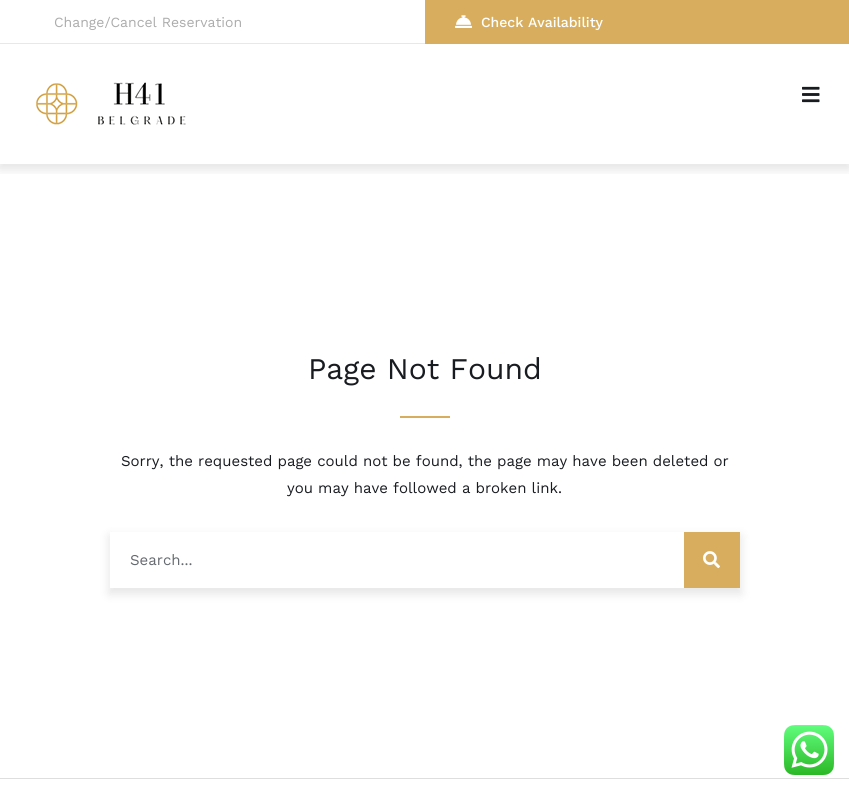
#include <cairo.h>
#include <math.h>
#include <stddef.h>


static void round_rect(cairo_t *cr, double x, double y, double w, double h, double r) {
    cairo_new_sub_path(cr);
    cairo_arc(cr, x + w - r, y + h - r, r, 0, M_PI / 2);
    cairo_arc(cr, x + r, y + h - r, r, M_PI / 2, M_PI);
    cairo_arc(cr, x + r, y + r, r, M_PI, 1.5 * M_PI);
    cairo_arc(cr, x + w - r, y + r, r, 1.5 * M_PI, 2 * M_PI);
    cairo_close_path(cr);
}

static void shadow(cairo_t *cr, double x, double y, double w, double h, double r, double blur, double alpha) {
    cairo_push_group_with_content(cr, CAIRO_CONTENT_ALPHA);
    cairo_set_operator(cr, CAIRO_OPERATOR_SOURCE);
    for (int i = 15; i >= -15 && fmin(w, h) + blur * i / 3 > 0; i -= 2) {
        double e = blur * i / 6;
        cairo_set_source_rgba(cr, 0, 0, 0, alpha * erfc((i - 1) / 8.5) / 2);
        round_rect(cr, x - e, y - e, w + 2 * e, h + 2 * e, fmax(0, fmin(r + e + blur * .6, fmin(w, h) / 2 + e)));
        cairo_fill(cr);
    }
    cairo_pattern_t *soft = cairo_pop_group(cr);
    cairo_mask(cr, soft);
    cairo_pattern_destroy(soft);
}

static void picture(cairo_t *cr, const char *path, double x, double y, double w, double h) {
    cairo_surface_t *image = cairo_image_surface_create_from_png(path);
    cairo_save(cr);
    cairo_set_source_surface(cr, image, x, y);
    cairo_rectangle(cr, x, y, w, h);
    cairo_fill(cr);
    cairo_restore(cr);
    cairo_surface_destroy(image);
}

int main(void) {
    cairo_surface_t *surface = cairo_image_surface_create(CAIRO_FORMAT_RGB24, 849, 790);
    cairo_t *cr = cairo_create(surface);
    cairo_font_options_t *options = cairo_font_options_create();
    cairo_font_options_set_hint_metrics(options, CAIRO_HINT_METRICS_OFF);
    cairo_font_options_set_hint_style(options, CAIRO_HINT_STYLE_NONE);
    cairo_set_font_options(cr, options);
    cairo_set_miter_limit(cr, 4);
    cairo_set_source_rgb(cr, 1, 1, 1);
    cairo_paint(cr);
    cairo_save(cr);
    cairo_rectangle(cr, 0, 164, 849, 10);
    cairo_clip(cr);
    cairo_set_source_rgb(cr, 0, 0, 0);
    shadow(cr, -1, 4, 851, 166, 0, 5, 0.1);
    cairo_restore(cr);
    cairo_set_source_rgb(cr, 0.91, 0.91, 0.91);
    cairo_rectangle(cr, 0, 43, 425, 1);
    cairo_fill(cr);
    cairo_select_font_face(cr, "Work Sans", CAIRO_FONT_SLANT_NORMAL, CAIRO_FONT_WEIGHT_NORMAL);
    cairo_set_font_size(cr, 14);
    cairo_set_source_rgb(cr, 0.678, 0.675, 0.675);
    cairo_move_to(cr, 54, 27);
    cairo_show_text(cr, "Change/Cancel Reservation");
    cairo_set_source_rgb(cr, 0.847, 0.682, 0.369);
    cairo_rectangle(cr, 425, 0, 424, 44);
    cairo_fill(cr);
    picture(cr, "img1.png", 455, 15, 17, 13);
    cairo_select_font_face(cr, "Work Sans Medium", CAIRO_FONT_SLANT_NORMAL, CAIRO_FONT_WEIGHT_NORMAL);
    cairo_set_source_rgb(cr, 1, 1, 1);
    cairo_move_to(cr, 481, 27);
    cairo_show_text(cr, "Check Availability");
    picture(cr, "img2.png", 36, 82, 150, 43);
    picture(cr, "img3.png", 802, 86, 18, 17);
    cairo_select_font_face(cr, "Work Sans", CAIRO_FONT_SLANT_NORMAL, CAIRO_FONT_WEIGHT_NORMAL);
    cairo_set_font_size(cr, 30);
    cairo_set_source_rgb(cr, 0.094, 0.106, 0.125);
    cairo_move_to(cr, 308, 379);
    cairo_show_text(cr, "Page Not Found");
    cairo_set_source_rgb(cr, 0.847, 0.682, 0.369);
    cairo_rectangle(cr, 400, 416, 50, 2);
    cairo_fill(cr);
    cairo_set_font_size(cr, 15);
    cairo_set_source_rgb(cr, 0.094, 0.106, 0.125);
    cairo_move_to(cr, 121, 466);
    cairo_show_text(cr, "Sorry, the requested page could not be found, the page may have been deleted or");
    cairo_move_to(cr, 287, 493);
    cairo_show_text(cr, "you may have followed a broken link.");
    cairo_save(cr);
    cairo_set_fill_rule(cr, CAIRO_FILL_RULE_EVEN_ODD);
    cairo_new_path(cr);
    cairo_move_to(cr, 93, 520);
    cairo_line_to(cr, 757, 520);
    cairo_line_to(cr, 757, 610);
    cairo_line_to(cr, 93, 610);
    cairo_close_path(cr);
    cairo_move_to(cr, 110, 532);
    cairo_line_to(cr, 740, 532);
    cairo_line_to(cr, 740, 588);
    cairo_line_to(cr, 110, 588);
    cairo_close_path(cr);
    cairo_clip(cr);
    cairo_set_source_rgb(cr, 0, 0, 0);
    shadow(cr, 109, 536, 632, 58, 0, 5, 0.1);
    cairo_restore(cr);
    cairo_set_source_rgb(cr, 0.396, 0.416, 0.439);
    cairo_move_to(cr, 130, 565);
    cairo_show_text(cr, "Search...");
    cairo_set_source_rgb(cr, 0.847, 0.682, 0.369);
    cairo_rectangle(cr, 684, 532, 56, 56);
    cairo_fill(cr);
    picture(cr, "img4.png", 703, 551, 17, 18);
    cairo_set_source_rgb(cr, 0.871, 0.871, 0.871);
    cairo_rectangle(cr, 0, 778, 849, 1);
    cairo_fill(cr);
    picture(cr, "img5.png", 784, 725, 50, 50);
    cairo_surface_write_to_png(surface, "page.png");
    cairo_font_options_destroy(options);
    cairo_destroy(cr);
    cairo_surface_destroy(surface);
    return 0;
}
